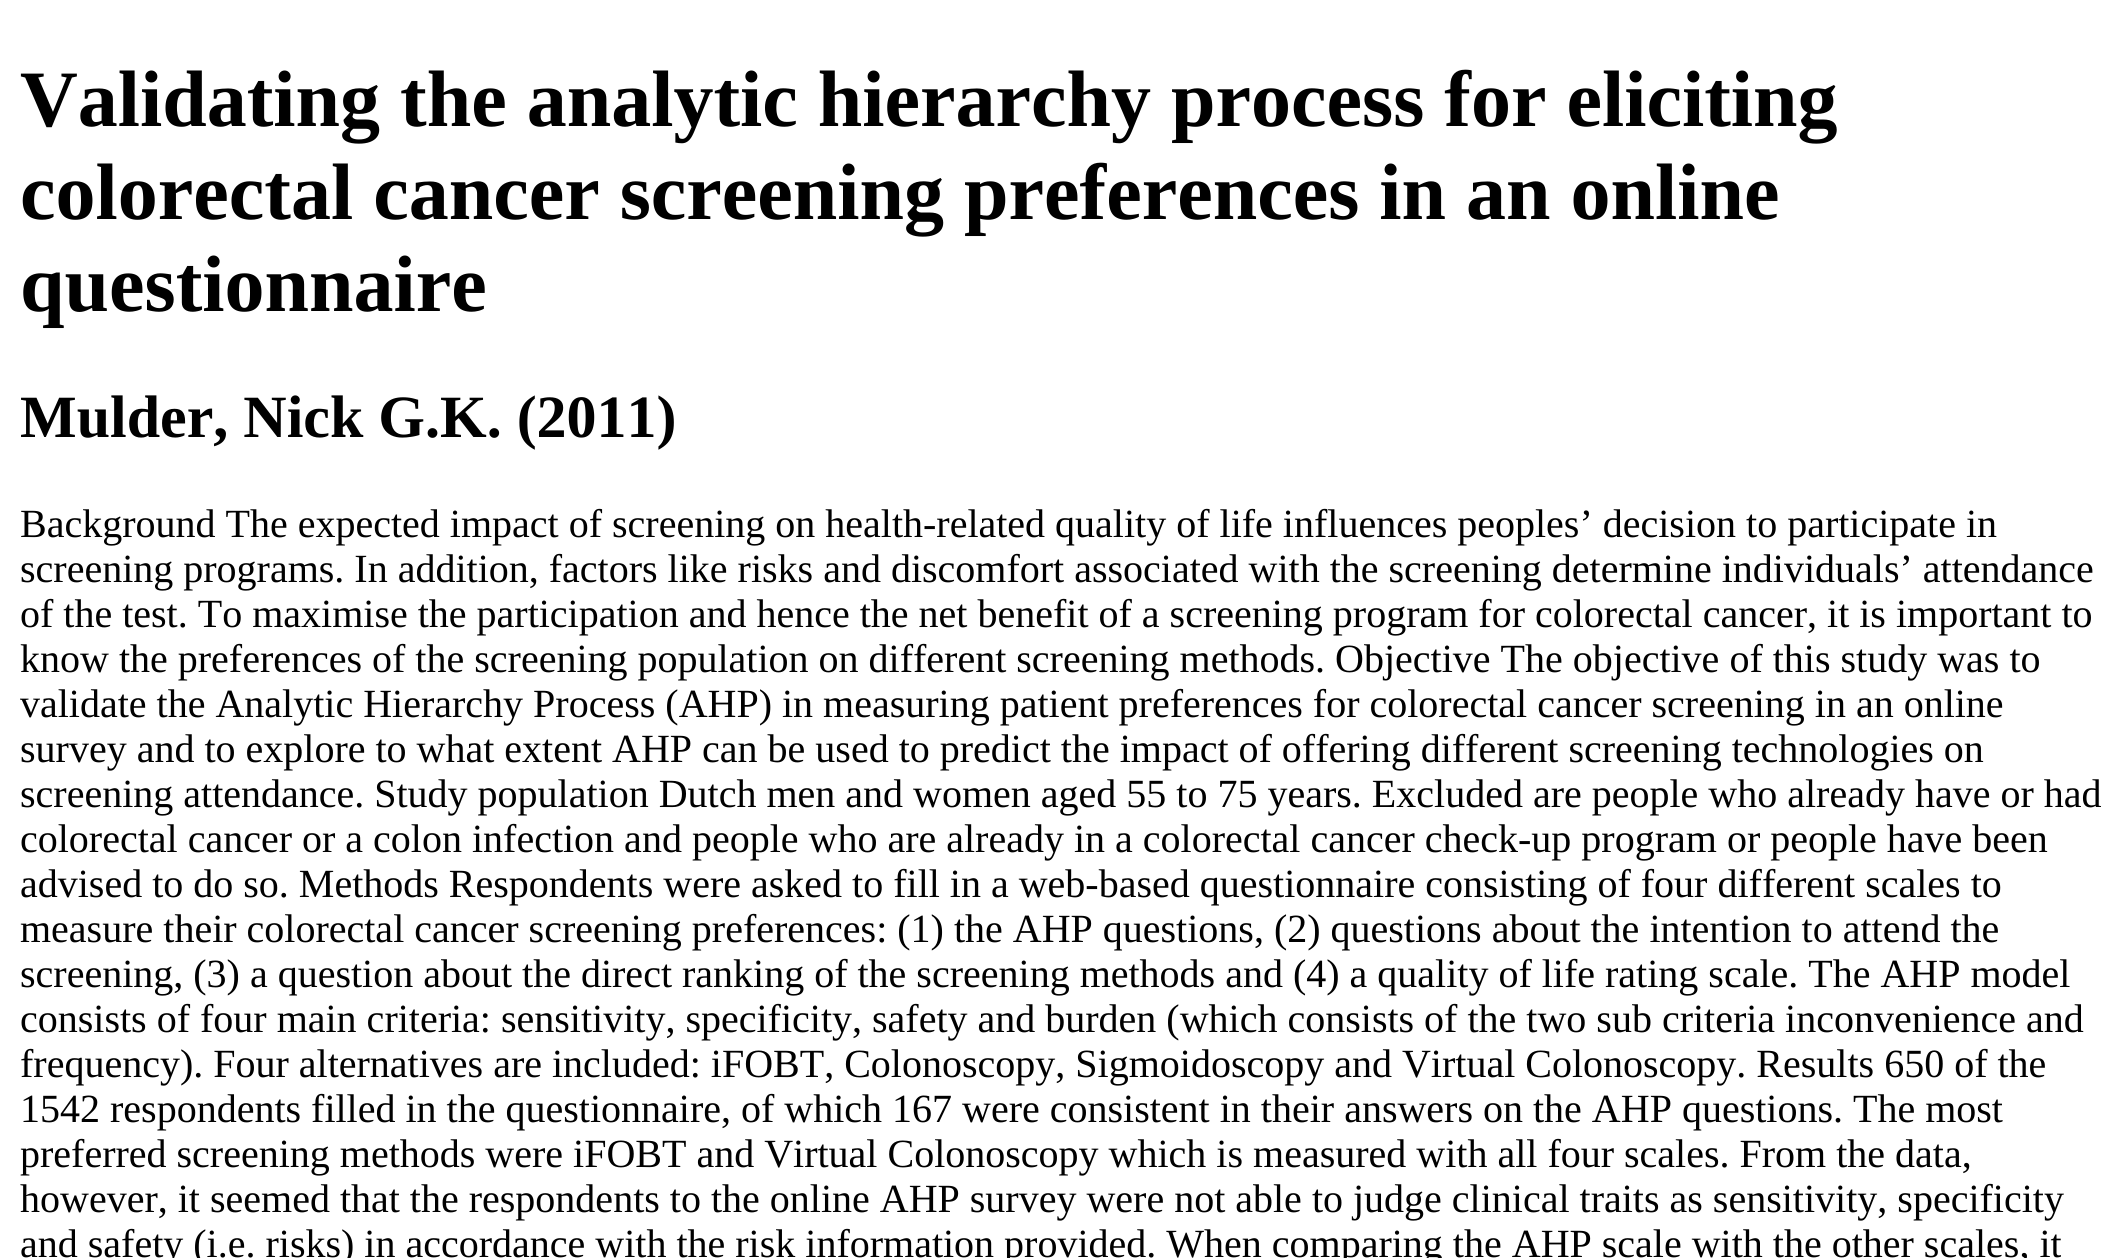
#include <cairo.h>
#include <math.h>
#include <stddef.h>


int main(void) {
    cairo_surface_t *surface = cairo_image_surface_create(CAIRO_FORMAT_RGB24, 2122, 1258);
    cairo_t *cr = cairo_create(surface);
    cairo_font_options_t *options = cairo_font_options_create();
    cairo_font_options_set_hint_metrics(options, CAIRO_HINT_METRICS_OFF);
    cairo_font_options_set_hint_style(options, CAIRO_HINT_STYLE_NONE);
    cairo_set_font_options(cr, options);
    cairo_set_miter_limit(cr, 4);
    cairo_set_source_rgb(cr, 1, 1, 1);
    cairo_paint(cr);
    cairo_select_font_face(cr, "Liberation Serif", CAIRO_FONT_SLANT_NORMAL, CAIRO_FONT_WEIGHT_BOLD);
    cairo_set_font_size(cr, 80);
    cairo_set_source_rgb(cr, 0, 0, 0);
    cairo_move_to(cr, 20, 126);
    cairo_show_text(cr, "Validating the analytic hierarchy process for eliciting");
    cairo_move_to(cr, 20, 219);
    cairo_show_text(cr, "colorectal cancer screening preferences in an online");
    cairo_move_to(cr, 20, 311);
    cairo_show_text(cr, "questionnaire");
    cairo_set_font_size(cr, 60);
    cairo_move_to(cr, 20, 437);
    cairo_show_text(cr, "Mulder, Nick G.K. (2011)");
    cairo_select_font_face(cr, "Liberation Serif", CAIRO_FONT_SLANT_NORMAL, CAIRO_FONT_WEIGHT_NORMAL);
    cairo_set_font_size(cr, 40);
    cairo_move_to(cr, 20, 537);
    cairo_show_text(cr, "Background The expected impact of screening on health-related quality of life influences peoples’ decision to participate in");
    cairo_move_to(cr, 20, 582);
    cairo_show_text(cr, "screening programs. In addition, factors like risks and discomfort associated with the screening determine individuals’ attendance");
    cairo_move_to(cr, 20, 627);
    cairo_show_text(cr, "of the test. To maximise the participation and hence the net benefit of a screening program for colorectal cancer, it is important to");
    cairo_move_to(cr, 20, 672);
    cairo_show_text(cr, "know the preferences of the screening population on different screening methods. Objective The objective of this study was to");
    cairo_move_to(cr, 20, 717);
    cairo_show_text(cr, "validate the Analytic Hierarchy Process (AHP) in measuring patient preferences for colorectal cancer screening in an online");
    cairo_move_to(cr, 20, 762);
    cairo_show_text(cr, "survey and to explore to what extent AHP can be used to predict the impact of offering different screening technologies on");
    cairo_move_to(cr, 20, 807);
    cairo_show_text(cr, "screening attendance. Study population Dutch men and women aged 55 to 75 years. Excluded are people who already have or had");
    cairo_move_to(cr, 20, 852);
    cairo_show_text(cr, "colorectal cancer or a colon infection and people who are already in a colorectal cancer check-up program or people have been");
    cairo_move_to(cr, 20, 897);
    cairo_show_text(cr, "advised to do so. Methods Respondents were asked to fill in a web-based questionnaire consisting of four different scales to");
    cairo_move_to(cr, 20, 942);
    cairo_show_text(cr, "measure their colorectal cancer screening preferences: (1) the AHP questions, (2) questions about the intention to attend the");
    cairo_move_to(cr, 20, 987);
    cairo_show_text(cr, "screening, (3) a question about the direct ranking of the screening methods and (4) a quality of life rating scale. The AHP model");
    cairo_move_to(cr, 20, 1032);
    cairo_show_text(cr, "consists of four main criteria: sensitivity, specificity, safety and burden (which consists of the two sub criteria inconvenience and");
    cairo_move_to(cr, 20, 1077);
    cairo_show_text(cr, "frequency). Four alternatives are included: iFOBT, Colonoscopy, Sigmoidoscopy and Virtual Colonoscopy. Results 650 of the");
    cairo_move_to(cr, 20, 1122);
    cairo_show_text(cr, "1542 respondents filled in the questionnaire, of which 167 were consistent in their answers on the AHP questions. The most");
    cairo_move_to(cr, 20, 1167);
    cairo_show_text(cr, "preferred screening methods were iFOBT and Virtual Colonoscopy which is measured with all four scales. From the data,");
    cairo_move_to(cr, 20, 1212);
    cairo_show_text(cr, "however, it seemed that the respondents to the online AHP survey were not able to judge clinical traits as sensitivity, specificity");
    cairo_move_to(cr, 20, 1257);
    cairo_show_text(cr, "and safety (i.e. risks) in accordance with the risk information provided. When comparing the AHP scale with the other scales, it");
    cairo_surface_write_to_png(surface, "page.png");
    cairo_font_options_destroy(options);
    cairo_destroy(cr);
    cairo_surface_destroy(surface);
    return 0;
}
